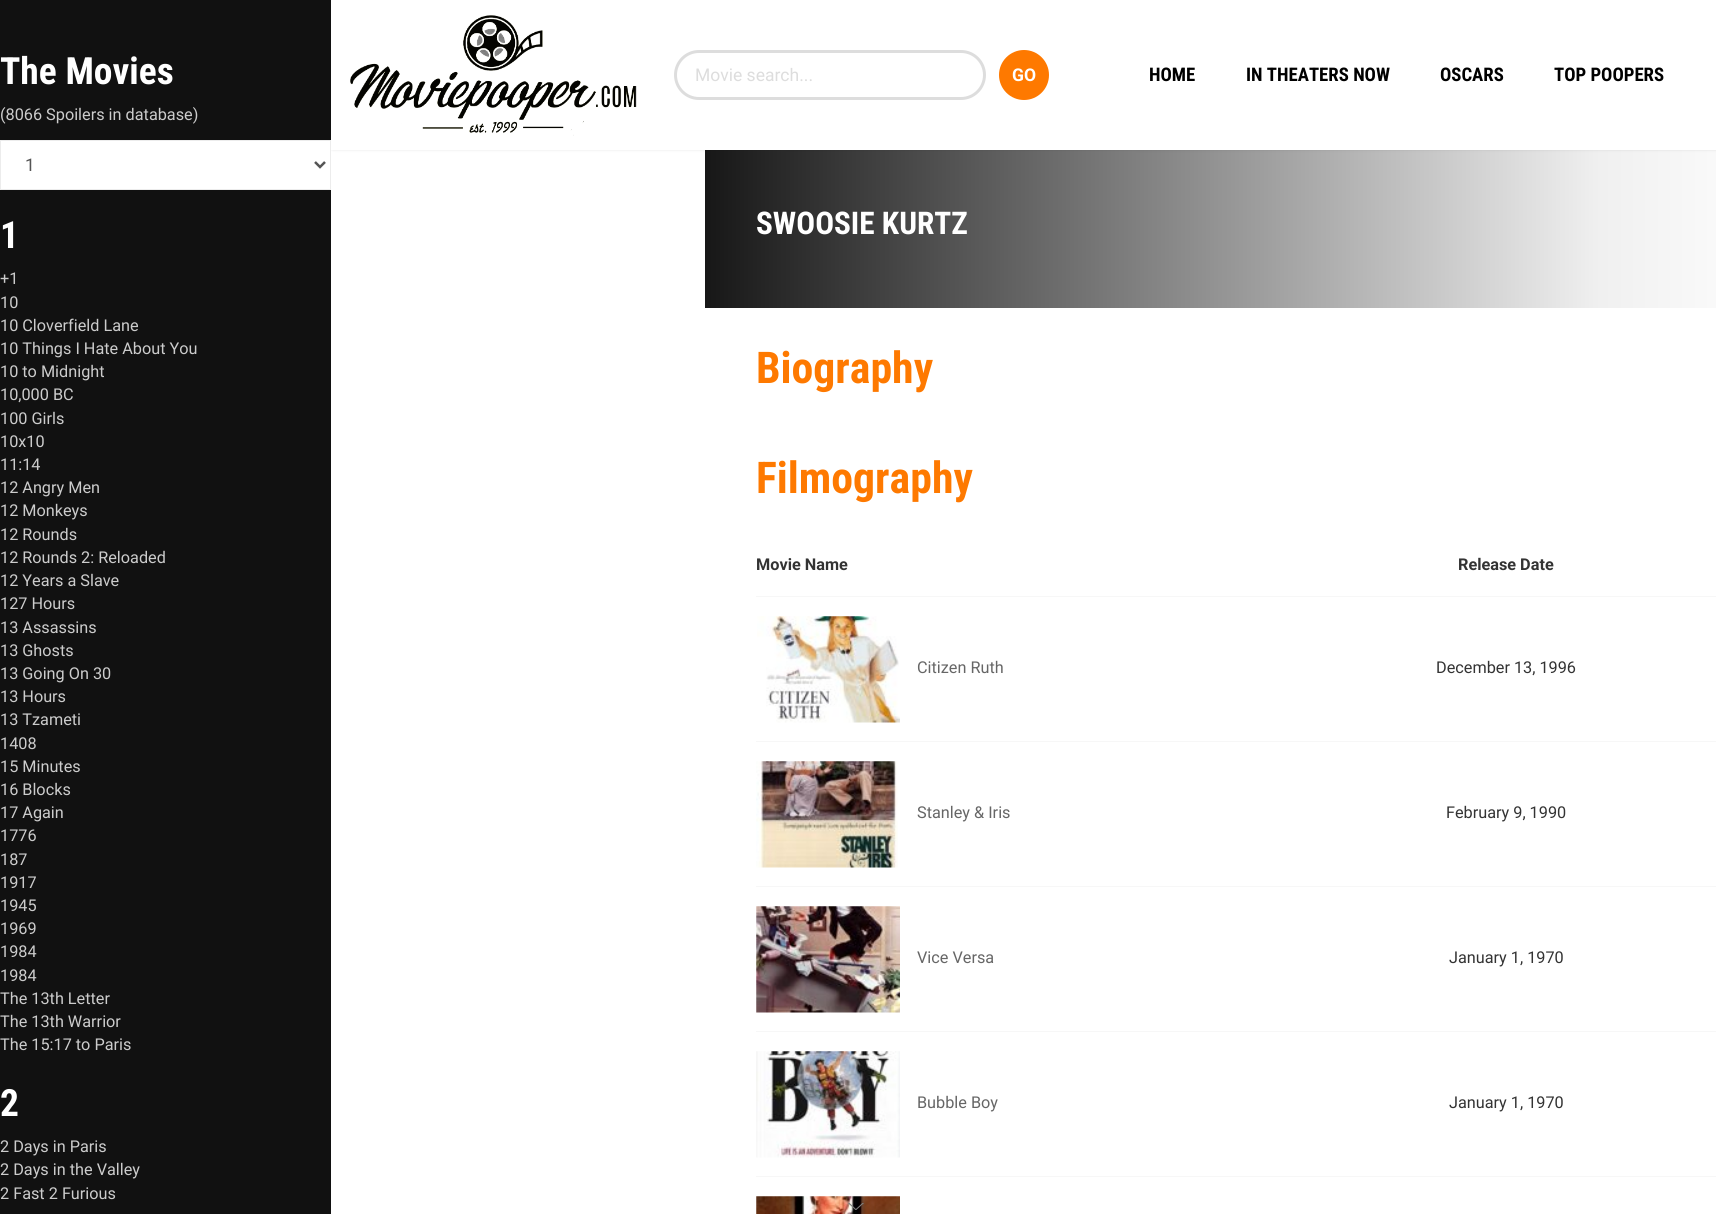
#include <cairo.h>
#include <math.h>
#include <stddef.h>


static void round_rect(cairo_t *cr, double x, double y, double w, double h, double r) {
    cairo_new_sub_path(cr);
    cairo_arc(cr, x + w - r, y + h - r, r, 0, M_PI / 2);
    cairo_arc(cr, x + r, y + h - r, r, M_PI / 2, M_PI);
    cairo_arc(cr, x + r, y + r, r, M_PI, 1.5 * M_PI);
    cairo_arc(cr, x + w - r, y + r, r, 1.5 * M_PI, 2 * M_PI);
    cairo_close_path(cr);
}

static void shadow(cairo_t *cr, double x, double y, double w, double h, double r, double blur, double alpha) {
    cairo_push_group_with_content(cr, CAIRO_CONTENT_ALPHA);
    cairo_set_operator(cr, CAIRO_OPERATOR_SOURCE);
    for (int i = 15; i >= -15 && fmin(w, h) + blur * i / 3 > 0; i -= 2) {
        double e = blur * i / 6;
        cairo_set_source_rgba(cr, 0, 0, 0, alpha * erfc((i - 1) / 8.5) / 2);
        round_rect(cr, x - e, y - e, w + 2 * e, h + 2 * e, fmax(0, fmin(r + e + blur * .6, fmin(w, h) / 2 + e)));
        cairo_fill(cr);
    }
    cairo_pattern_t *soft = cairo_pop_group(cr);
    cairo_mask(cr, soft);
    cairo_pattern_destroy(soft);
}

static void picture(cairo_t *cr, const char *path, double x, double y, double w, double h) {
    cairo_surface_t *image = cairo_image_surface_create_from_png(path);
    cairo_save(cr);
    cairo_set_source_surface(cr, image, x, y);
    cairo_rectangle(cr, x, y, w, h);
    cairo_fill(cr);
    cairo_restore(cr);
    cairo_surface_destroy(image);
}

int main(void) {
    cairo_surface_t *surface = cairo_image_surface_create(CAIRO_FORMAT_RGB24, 1716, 1214);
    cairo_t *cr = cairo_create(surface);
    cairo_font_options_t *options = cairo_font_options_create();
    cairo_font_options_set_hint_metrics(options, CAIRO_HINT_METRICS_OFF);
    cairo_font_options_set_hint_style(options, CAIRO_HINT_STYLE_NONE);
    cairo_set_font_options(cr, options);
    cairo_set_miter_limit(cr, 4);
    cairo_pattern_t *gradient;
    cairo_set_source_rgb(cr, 1, 1, 1);
    cairo_paint(cr);
    cairo_save(cr);
    cairo_set_fill_rule(cr, CAIRO_FILL_RULE_EVEN_ODD);
    cairo_new_path(cr);
    cairo_move_to(cr, 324, 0);
    cairo_line_to(cr, 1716, 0);
    cairo_line_to(cr, 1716, 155);
    cairo_line_to(cr, 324, 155);
    cairo_close_path(cr);
    cairo_move_to(cr, 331, 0);
    cairo_line_to(cr, 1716, 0);
    cairo_line_to(cr, 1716, 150);
    cairo_line_to(cr, 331, 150);
    cairo_close_path(cr);
    cairo_clip(cr);
    cairo_set_source_rgb(cr, 0, 0, 0);
    shadow(cr, 333, -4, 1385, 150, 0, 2.5, 1);
    cairo_restore(cr);
    cairo_set_source_rgb(cr, 0.067, 0.067, 0.067);
    cairo_rectangle(cr, 0, 0, 331, 1214);
    cairo_fill(cr);
    cairo_select_font_face(cr, "Roboto Condensed", CAIRO_FONT_SLANT_NORMAL, CAIRO_FONT_WEIGHT_BOLD);
    cairo_set_font_size(cr, 37.5);
    cairo_set_source_rgb(cr, 1, 1, 1);
    cairo_move_to(cr, 0, 84);
    cairo_show_text(cr, "The Movies");
    cairo_select_font_face(cr, "Roboto", CAIRO_FONT_SLANT_NORMAL, CAIRO_FONT_WEIGHT_NORMAL);
    cairo_set_font_size(cr, 16.25);
    cairo_set_source_rgb(cr, 0.8, 0.8, 0.8);
    cairo_move_to(cr, 0, 120);
    cairo_show_text(cr, "(8066 Spoilers in database)");
    cairo_set_source_rgb(cr, 1, 1, 1);
    cairo_rectangle(cr, 0.5, 140.5, 330, 49);
    cairo_fill_preserve(cr);
    cairo_set_source_rgb(cr, 0.922, 0.922, 0.922);
    cairo_set_line_width(cr, 1);
    cairo_stroke(cr);
    cairo_new_path(cr);
    cairo_move_to(cr, 315, 162);
    cairo_line_to(cr, 320, 167);
    cairo_line_to(cr, 325, 162);
    cairo_set_source_rgb(cr, 0.333, 0.333, 0.333);
    cairo_set_line_width(cr, 2.5);
    cairo_stroke(cr);
    cairo_set_font_size(cr, 17.5);
    cairo_move_to(cr, 25, 171);
    cairo_show_text(cr, "1");
    cairo_select_font_face(cr, "Roboto Condensed", CAIRO_FONT_SLANT_NORMAL, CAIRO_FONT_WEIGHT_BOLD);
    cairo_set_font_size(cr, 37.5);
    cairo_set_source_rgb(cr, 1, 1, 1);
    cairo_move_to(cr, 0, 248);
    cairo_show_text(cr, "1");
    cairo_select_font_face(cr, "Roboto", CAIRO_FONT_SLANT_NORMAL, CAIRO_FONT_WEIGHT_NORMAL);
    cairo_set_font_size(cr, 16.25);
    cairo_set_source_rgb(cr, 0.8, 0.8, 0.8);
    cairo_move_to(cr, 0, 284);
    cairo_show_text(cr, "+1");
    cairo_move_to(cr, 0, 308);
    cairo_show_text(cr, "10");
    cairo_move_to(cr, 0, 331);
    cairo_show_text(cr, "10 Cloverfield Lane");
    cairo_move_to(cr, 0, 354);
    cairo_show_text(cr, "10 Things I Hate About You");
    cairo_move_to(cr, 0, 377);
    cairo_show_text(cr, "10 to Midnight");
    cairo_move_to(cr, 0, 400);
    cairo_show_text(cr, "10,000 BC");
    cairo_move_to(cr, 0, 424);
    cairo_show_text(cr, "100 Girls");
    cairo_move_to(cr, 0, 447);
    cairo_show_text(cr, "10x10");
    cairo_move_to(cr, 0, 470);
    cairo_show_text(cr, "11:14");
    cairo_move_to(cr, 0, 493);
    cairo_show_text(cr, "12 Angry Men");
    cairo_move_to(cr, 0, 516);
    cairo_show_text(cr, "12 Monkeys");
    cairo_move_to(cr, 0, 540);
    cairo_show_text(cr, "12 Rounds");
    cairo_move_to(cr, 0, 563);
    cairo_show_text(cr, "12 Rounds 2: Reloaded");
    cairo_move_to(cr, 0, 586);
    cairo_show_text(cr, "12 Years a Slave");
    cairo_move_to(cr, 0, 609);
    cairo_show_text(cr, "127 Hours");
    cairo_move_to(cr, 0, 633);
    cairo_show_text(cr, "13 Assassins");
    cairo_move_to(cr, 0, 656);
    cairo_show_text(cr, "13 Ghosts");
    cairo_move_to(cr, 0, 679);
    cairo_show_text(cr, "13 Going On 30");
    cairo_move_to(cr, 0, 702);
    cairo_show_text(cr, "13 Hours");
    cairo_move_to(cr, 0, 725);
    cairo_show_text(cr, "13 Tzameti");
    cairo_move_to(cr, 0, 749);
    cairo_show_text(cr, "1408");
    cairo_move_to(cr, 0, 772);
    cairo_show_text(cr, "15 Minutes");
    cairo_move_to(cr, 0, 795);
    cairo_show_text(cr, "16 Blocks");
    cairo_move_to(cr, 0, 818);
    cairo_show_text(cr, "17 Again");
    cairo_move_to(cr, 0, 841);
    cairo_show_text(cr, "1776");
    cairo_move_to(cr, 0, 865);
    cairo_show_text(cr, "187");
    cairo_move_to(cr, 0, 888);
    cairo_show_text(cr, "1917");
    cairo_move_to(cr, 0, 911);
    cairo_show_text(cr, "1945");
    cairo_move_to(cr, 0, 934);
    cairo_show_text(cr, "1969");
    cairo_move_to(cr, 0, 957);
    cairo_show_text(cr, "1984");
    cairo_move_to(cr, 0, 981);
    cairo_show_text(cr, "1984");
    cairo_move_to(cr, 0, 1004);
    cairo_show_text(cr, "The 13th Letter");
    cairo_move_to(cr, 0, 1027);
    cairo_show_text(cr, "The 13th Warrior");
    cairo_move_to(cr, 0, 1050);
    cairo_show_text(cr, "The 15:17 to Paris");
    cairo_select_font_face(cr, "Roboto Condensed", CAIRO_FONT_SLANT_NORMAL, CAIRO_FONT_WEIGHT_BOLD);
    cairo_set_font_size(cr, 37.5);
    cairo_set_source_rgb(cr, 1, 1, 1);
    cairo_move_to(cr, 0, 1116);
    cairo_show_text(cr, "2");
    cairo_select_font_face(cr, "Roboto", CAIRO_FONT_SLANT_NORMAL, CAIRO_FONT_WEIGHT_NORMAL);
    cairo_set_font_size(cr, 16.25);
    cairo_set_source_rgb(cr, 0.8, 0.8, 0.8);
    cairo_move_to(cr, 0, 1152);
    cairo_show_text(cr, "2 Days in Paris");
    cairo_move_to(cr, 0, 1175);
    cairo_show_text(cr, "2 Days in the Valley");
    cairo_move_to(cr, 0, 1199);
    cairo_show_text(cr, "2 Fast 2 Furious");
    picture(cr, "img1.png", 350, 15, 287, 121);
    round_rect(cr, 675.5, 51.5, 309, 47, 23.5);
    cairo_set_source_rgb(cr, 0.867, 0.867, 0.867);
    cairo_set_line_width(cr, 3);
    cairo_stroke(cr);
    cairo_set_font_size(cr, 17.5);
    cairo_move_to(cr, 695, 81);
    cairo_show_text(cr, "Movie search...");
    cairo_set_source_rgb(cr, 0.996, 0.475, 0);
    cairo_new_path(cr);
    cairo_arc(cr, 1024, 75, 25, 0, 2 * M_PI);
    cairo_fill(cr);
    cairo_select_font_face(cr, "Roboto", CAIRO_FONT_SLANT_NORMAL, CAIRO_FONT_WEIGHT_BOLD);
    cairo_set_source_rgb(cr, 1, 1, 1);
    cairo_move_to(cr, 1012, 81);
    cairo_show_text(cr, "GO");
    cairo_select_font_face(cr, "Roboto Condensed", CAIRO_FONT_SLANT_NORMAL, CAIRO_FONT_WEIGHT_BOLD);
    cairo_set_font_size(cr, 18.75);
    cairo_set_source_rgb(cr, 0, 0, 0);
    cairo_move_to(cr, 1149, 81);
    cairo_show_text(cr, "HOME");
    cairo_move_to(cr, 1246, 81);
    cairo_show_text(cr, "IN THEATERS NOW");
    cairo_move_to(cr, 1440, 81);
    cairo_show_text(cr, "OSCARS");
    cairo_move_to(cr, 1554, 81);
    cairo_show_text(cr, "TOP POOPERS");
    gradient = cairo_pattern_create_linear(705, 229, 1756, 229);
    cairo_pattern_add_color_stop_rgba(gradient, 0, 0, 0, 0, 0.91);
    cairo_pattern_add_color_stop_rgba(gradient, 0.85, 0, 0, 0, 0.06);
    cairo_pattern_add_color_stop_rgba(gradient, 1, 0, 0, 0, 0.01);
    cairo_set_source(cr, gradient);
    cairo_pattern_destroy(gradient);
    cairo_rectangle(cr, 705, 150, 1011, 158);
    cairo_fill(cr);
    cairo_set_font_size(cr, 31.25);
    cairo_set_source_rgb(cr, 1, 1, 1);
    cairo_move_to(cr, 756, 234);
    cairo_show_text(cr, "SWOOSIE KURTZ");
    cairo_set_font_size(cr, 43.75);
    cairo_set_source_rgb(cr, 0.996, 0.475, 0);
    cairo_move_to(cr, 756, 383);
    cairo_show_text(cr, "Biography");
    cairo_move_to(cr, 756, 493);
    cairo_show_text(cr, "Filmography");
    cairo_set_source_rgb(cr, 0.965, 0.965, 0.965);
    cairo_rectangle(cr, 756, 596, 960, 1);
    cairo_fill(cr);
    cairo_select_font_face(cr, "Roboto", CAIRO_FONT_SLANT_NORMAL, CAIRO_FONT_WEIGHT_BOLD);
    cairo_set_font_size(cr, 16.25);
    cairo_set_source_rgb(cr, 0.2, 0.2, 0.2);
    cairo_move_to(cr, 756, 570);
    cairo_show_text(cr, "Movie Name");
    cairo_move_to(cr, 1458, 570);
    cairo_show_text(cr, "Release Date");
    cairo_set_source_rgb(cr, 0.965, 0.965, 0.965);
    cairo_rectangle(cr, 756, 741, 960, 1);
    cairo_fill(cr);
    picture(cr, "img2.png", 757, 616, 143, 107);
    cairo_select_font_face(cr, "Roboto", CAIRO_FONT_SLANT_NORMAL, CAIRO_FONT_WEIGHT_NORMAL);
    cairo_set_source_rgb(cr, 0.4, 0.4, 0.4);
    cairo_move_to(cr, 917, 673);
    cairo_show_text(cr, "Citizen Ruth");
    cairo_set_source_rgb(cr, 0.2, 0.2, 0.2);
    cairo_move_to(cr, 1436, 673);
    cairo_show_text(cr, "December 13, 1996");
    cairo_set_source_rgb(cr, 0.965, 0.965, 0.965);
    cairo_rectangle(cr, 756, 886, 960, 1);
    cairo_fill(cr);
    picture(cr, "img3.png", 756, 761, 142, 107);
    cairo_set_source_rgb(cr, 0.4, 0.4, 0.4);
    cairo_move_to(cr, 917, 818);
    cairo_show_text(cr, "Stanley & Iris");
    cairo_set_source_rgb(cr, 0.2, 0.2, 0.2);
    cairo_move_to(cr, 1446, 818);
    cairo_show_text(cr, "February 9, 1990");
    cairo_set_source_rgb(cr, 0.965, 0.965, 0.965);
    cairo_rectangle(cr, 756, 1031, 960, 1);
    cairo_fill(cr);
    picture(cr, "img4.png", 756, 906, 144, 107);
    cairo_set_source_rgb(cr, 0.4, 0.4, 0.4);
    cairo_move_to(cr, 917, 963);
    cairo_show_text(cr, "Vice Versa");
    cairo_set_source_rgb(cr, 0.2, 0.2, 0.2);
    cairo_move_to(cr, 1449, 963);
    cairo_show_text(cr, "January 1, 1970");
    cairo_set_source_rgb(cr, 0.965, 0.965, 0.965);
    cairo_rectangle(cr, 756, 1176, 960, 1);
    cairo_fill(cr);
    picture(cr, "img5.png", 756, 1051, 144, 107);
    cairo_set_source_rgb(cr, 0.4, 0.4, 0.4);
    cairo_move_to(cr, 917, 1108);
    cairo_show_text(cr, "Bubble Boy");
    cairo_set_source_rgb(cr, 0.2, 0.2, 0.2);
    cairo_move_to(cr, 1449, 1108);
    cairo_show_text(cr, "January 1, 1970");
    picture(cr, "img6.png", 756, 1196, 144, 18);
    picture(cr, "img7.png", 848, 1203, 16, 7);
    cairo_surface_write_to_png(surface, "page.png");
    cairo_font_options_destroy(options);
    cairo_destroy(cr);
    cairo_surface_destroy(surface);
    return 0;
}
